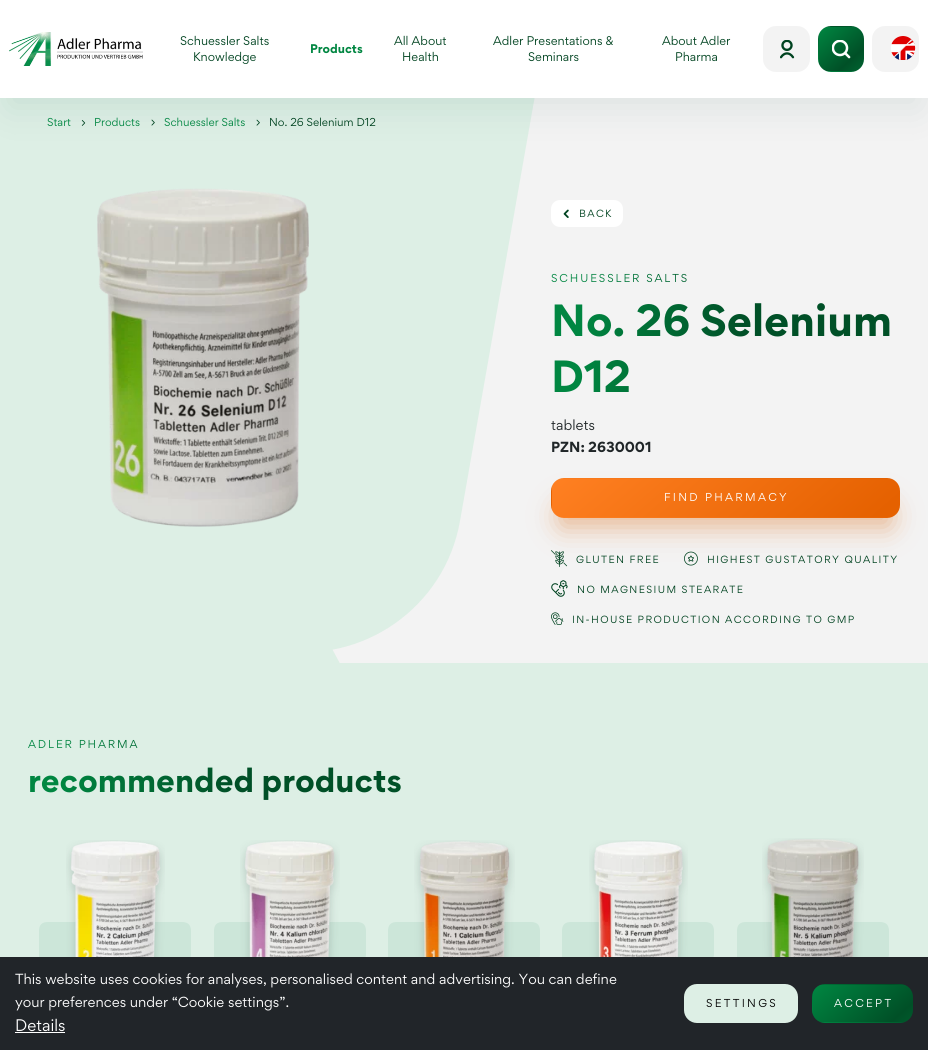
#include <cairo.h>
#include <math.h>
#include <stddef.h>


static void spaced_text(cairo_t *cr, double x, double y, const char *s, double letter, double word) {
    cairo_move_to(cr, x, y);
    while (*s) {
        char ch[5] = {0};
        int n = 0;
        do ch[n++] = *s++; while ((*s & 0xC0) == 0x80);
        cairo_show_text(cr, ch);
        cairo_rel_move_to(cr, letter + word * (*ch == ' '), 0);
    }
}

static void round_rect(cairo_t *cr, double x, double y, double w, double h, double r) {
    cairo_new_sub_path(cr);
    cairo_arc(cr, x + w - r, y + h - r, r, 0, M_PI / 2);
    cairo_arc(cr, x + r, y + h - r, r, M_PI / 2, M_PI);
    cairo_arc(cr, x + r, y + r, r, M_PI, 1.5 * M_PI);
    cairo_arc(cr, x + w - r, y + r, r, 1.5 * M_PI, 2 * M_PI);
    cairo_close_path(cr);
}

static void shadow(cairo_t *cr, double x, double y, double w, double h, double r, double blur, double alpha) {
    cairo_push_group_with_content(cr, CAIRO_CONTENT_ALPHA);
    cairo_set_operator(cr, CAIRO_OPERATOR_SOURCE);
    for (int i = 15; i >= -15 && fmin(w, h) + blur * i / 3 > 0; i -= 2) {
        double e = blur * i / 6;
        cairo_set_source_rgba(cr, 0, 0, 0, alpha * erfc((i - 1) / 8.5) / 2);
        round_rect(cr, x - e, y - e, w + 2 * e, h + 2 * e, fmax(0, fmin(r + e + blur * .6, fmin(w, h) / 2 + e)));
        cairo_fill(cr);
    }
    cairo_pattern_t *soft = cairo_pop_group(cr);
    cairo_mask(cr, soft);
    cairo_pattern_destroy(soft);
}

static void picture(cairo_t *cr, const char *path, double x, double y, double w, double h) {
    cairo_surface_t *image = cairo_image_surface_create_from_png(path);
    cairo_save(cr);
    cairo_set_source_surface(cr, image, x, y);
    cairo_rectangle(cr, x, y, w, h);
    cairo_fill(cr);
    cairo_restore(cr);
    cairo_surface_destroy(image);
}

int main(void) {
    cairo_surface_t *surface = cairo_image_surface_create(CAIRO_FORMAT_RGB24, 928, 1050);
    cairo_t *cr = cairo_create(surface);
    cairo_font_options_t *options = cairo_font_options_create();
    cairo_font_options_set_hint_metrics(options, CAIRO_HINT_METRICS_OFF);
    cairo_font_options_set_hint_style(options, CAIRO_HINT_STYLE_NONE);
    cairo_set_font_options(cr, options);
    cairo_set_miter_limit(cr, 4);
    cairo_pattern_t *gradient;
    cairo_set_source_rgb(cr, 0.953, 0.953, 0.953);
    cairo_paint(cr);
    cairo_set_source_rgb(cr, 0.867, 0.937, 0.898);
    cairo_set_fill_rule(cr, CAIRO_FILL_RULE_EVEN_ODD);
    cairo_new_path(cr);
    cairo_move_to(cr, 225, 449);
    cairo_line_to(cr, 404, 783);
    cairo_curve_to(cr, 409, 792, 409, 802, 404, 811);
    cairo_line_to(cr, 233, 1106);
    cairo_curve_to(cr, 228, 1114, 219, 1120, 210, 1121);
    cairo_line_to(cr, -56, 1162);
    cairo_line_to(cr, -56, 471);
    cairo_line_to(cr, 191, 433);
    cairo_curve_to(cr, 205, 431, 219, 437, 225, 449);
    cairo_close_path(cr);
    cairo_fill(cr);
    cairo_set_fill_rule(cr, CAIRO_FILL_RULE_WINDING);
    cairo_new_path(cr);
    cairo_move_to(cr, -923, -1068);
    cairo_line_to(cr, 690, -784);
    cairo_line_to(cr, 460, 521);
    cairo_curve_to(cr, 445, 607, 363, 665, 276, 650);
    cairo_line_to(cr, -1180, 393);
    cairo_close_path(cr);
    cairo_fill(cr);
    picture(cr, "img5.png", 81, 120, 5, 6);
    picture(cr, "img6.png", 151, 119, 4, 7);
    picture(cr, "img7.png", 256, 119, 4, 7);
    cairo_set_source_rgb(cr, 0, 0.227, 0.204);
    shadow(cr, 9, 28, 910, 79, 0, 18.5, 0.1);
    cairo_set_source_rgb(cr, 1, 1, 1);
    cairo_rectangle(cr, 0, 0, 928, 98);
    cairo_fill(cr);
    picture(cr, "img1.png", 9, 32, 134, 34);
    cairo_select_font_face(cr, "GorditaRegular", CAIRO_FONT_SLANT_NORMAL, CAIRO_FONT_WEIGHT_NORMAL);
    cairo_set_font_size(cr, 11.25);
    cairo_set_source_rgb(cr, 0, 0.263, 0.125);
    cairo_move_to(cr, 180, 45);
    cairo_show_text(cr, "Schuessler Salts");
    cairo_move_to(cr, 193, 61);
    cairo_show_text(cr, "Knowledge");
    cairo_select_font_face(cr, "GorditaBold", CAIRO_FONT_SLANT_NORMAL, CAIRO_FONT_WEIGHT_BOLD);
    cairo_set_source_rgb(cr, 0, 0.525, 0.255);
    cairo_move_to(cr, 310, 53);
    cairo_show_text(cr, "Products");
    cairo_select_font_face(cr, "GorditaRegular", CAIRO_FONT_SLANT_NORMAL, CAIRO_FONT_WEIGHT_NORMAL);
    cairo_set_source_rgb(cr, 0, 0.263, 0.125);
    cairo_move_to(cr, 394, 45);
    cairo_show_text(cr, "All About");
    cairo_move_to(cr, 402, 61);
    cairo_show_text(cr, "Health");
    cairo_move_to(cr, 493, 45);
    cairo_show_text(cr, "Adler Presentations &");
    cairo_move_to(cr, 528, 61);
    cairo_show_text(cr, "Seminars");
    cairo_move_to(cr, 662, 45);
    cairo_show_text(cr, "About Adler");
    cairo_move_to(cr, 675, 61);
    cairo_show_text(cr, "Pharma");
    cairo_set_source_rgb(cr, 0.953, 0.953, 0.953);
    round_rect(cr, 763, 26, 47, 46, 13);
    cairo_fill(cr);
    picture(cr, "img2.png", 780, 40, 15, 19);
    cairo_save(cr);
    round_rect(cr, 818, 26, 46, 46, 13);
    cairo_clip(cr);
    gradient = cairo_pattern_create_linear(833, -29, 893, 39);
    cairo_pattern_add_color_stop_rgba(gradient, 0, 0, 0.525, 0.255, 1);
    cairo_pattern_add_color_stop_rgba(gradient, 0.5, 0, 0.314, 0.153, 1);
    cairo_pattern_add_color_stop_rgba(gradient, 1, 0, 0.525, 0.255, 1);
    cairo_set_source(cr, gradient);
    cairo_pattern_destroy(gradient);
    cairo_rectangle(cr, 819, 26, 45, 1);
    cairo_fill(cr);
    gradient = cairo_pattern_create_linear(745, 15, 805, 83);
    cairo_pattern_add_color_stop_rgba(gradient, 0, 0, 0.525, 0.255, 1);
    cairo_pattern_add_color_stop_rgba(gradient, 0.5, 0, 0.314, 0.153, 1);
    cairo_pattern_add_color_stop_rgba(gradient, 1, 0, 0.525, 0.255, 1);
    cairo_set_source(cr, gradient);
    cairo_pattern_destroy(gradient);
    cairo_rectangle(cr, 818, 27, 1, 44);
    cairo_fill(cr);
    gradient = cairo_pattern_create_linear(833, 15, 893, 83);
    cairo_pattern_add_color_stop_rgba(gradient, 0, 0, 0.525, 0.255, 1);
    cairo_pattern_add_color_stop_rgba(gradient, 0.5, 0, 0.314, 0.153, 1);
    cairo_pattern_add_color_stop_rgba(gradient, 1, 0, 0.525, 0.255, 1);
    cairo_set_source(cr, gradient);
    cairo_pattern_destroy(gradient);
    cairo_rectangle(cr, 819, 27, 45, 44);
    cairo_fill(cr);
    gradient = cairo_pattern_create_linear(833, 59, 893, 127);
    cairo_pattern_add_color_stop_rgba(gradient, 0, 0, 0.525, 0.255, 1);
    cairo_pattern_add_color_stop_rgba(gradient, 0.5, 0, 0.314, 0.153, 1);
    cairo_pattern_add_color_stop_rgba(gradient, 1, 0, 0.525, 0.255, 1);
    cairo_set_source(cr, gradient);
    cairo_pattern_destroy(gradient);
    cairo_rectangle(cr, 819, 71, 45, 1);
    cairo_fill(cr);
    cairo_restore(cr);
    picture(cr, "img3.png", 832, 40, 19, 19);
    round_rect(cr, 872, 26, 47, 46, 13);
    cairo_fill(cr);
    picture(cr, "img4.png", 891, 36, 25, 24);
    cairo_set_font_size(cr, 10.25);
    cairo_set_source_rgb(cr, 0, 0.525, 0.255);
    cairo_move_to(cr, 47, 126);
    cairo_show_text(cr, "Start");
    cairo_move_to(cr, 94, 126);
    cairo_show_text(cr, "Products");
    cairo_move_to(cr, 164, 126);
    cairo_show_text(cr, "Schuessler Salts");
    cairo_set_source_rgb(cr, 0, 0.263, 0.125);
    cairo_move_to(cr, 269, 126);
    cairo_show_text(cr, "No. 26 Selenium D12");
    picture(cr, "img8.png", 97, 188, 212, 339);
    cairo_set_source_rgb(cr, 1, 1, 1);
    round_rect(cr, 551, 200, 72, 27, 9);
    cairo_fill(cr);
    picture(cr, "img9.png", 563, 209, 6, 9);
    cairo_set_font_size(cr, 9.35);
    cairo_set_source_rgb(cr, 0, 0.263, 0.125);
    spaced_text(cr, 579, 217, "BACK", 1.4, 0);
    cairo_set_font_size(cr, 10.25);
    gradient = cairo_pattern_create_linear(551, 278, 900, 278);
    cairo_pattern_add_color_stop_rgba(gradient, 0.08, 0, 0.525, 0.255, 1);
    cairo_pattern_add_color_stop_rgba(gradient, 0.55, 0, 0.314, 0.153, 1);
    cairo_set_source(cr, gradient);
    cairo_pattern_destroy(gradient);
    spaced_text(cr, 551, 282, "SCHUESSLER SALTS", 1.9, 0);
    cairo_select_font_face(cr, "GorditaBold", CAIRO_FONT_SLANT_NORMAL, CAIRO_FONT_WEIGHT_BOLD);
    cairo_set_font_size(cr, 40.25);
    gradient = cairo_pattern_create_linear(551, 348, 900, 348);
    cairo_pattern_add_color_stop_rgba(gradient, 0.08, 0, 0.525, 0.255, 1);
    cairo_pattern_add_color_stop_rgba(gradient, 0.55, 0, 0.314, 0.153, 1);
    cairo_set_source(cr, gradient);
    cairo_pattern_destroy(gradient);
    cairo_move_to(cr, 551, 336);
    cairo_show_text(cr, "No. 26 Selenium");
    cairo_move_to(cr, 551, 392);
    cairo_show_text(cr, "D12");
    cairo_select_font_face(cr, "GorditaRegular", CAIRO_FONT_SLANT_NORMAL, CAIRO_FONT_WEIGHT_NORMAL);
    cairo_set_font_size(cr, 13.1);
    cairo_set_source_rgb(cr, 0.125, 0.149, 0.157);
    cairo_move_to(cr, 551, 430);
    cairo_show_text(cr, "tablets");
    cairo_select_font_face(cr, "GorditaBold", CAIRO_FONT_SLANT_NORMAL, CAIRO_FONT_WEIGHT_BOLD);
    cairo_move_to(cr, 551, 452);
    cairo_show_text(cr, "PZN: 2630001");
    cairo_set_source_rgb(cr, 0.851, 0.365, 0);
    shadow(cr, 560, 506, 331, 21, 4, 14, 0.4);
    cairo_save(cr);
    round_rect(cr, 551, 478, 349, 40, 13);
    cairo_clip(cr);
    gradient = cairo_pattern_create_linear(741, 277, 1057, 643);
    cairo_pattern_add_color_stop_rgba(gradient, 0, 1, 0.502, 0.133, 1);
    cairo_pattern_add_color_stop_rgba(gradient, 0.5, 0.898, 0.38, 0, 1);
    cairo_pattern_add_color_stop_rgba(gradient, 1, 0.898, 0.38, 0, 1);
    cairo_set_source(cr, gradient);
    cairo_pattern_destroy(gradient);
    cairo_rectangle(cr, 552, 478, 348, 1);
    cairo_fill(cr);
    gradient = cairo_pattern_create_linear(47, 315, 363, 681);
    cairo_pattern_add_color_stop_rgba(gradient, 0, 1, 0.502, 0.133, 1);
    cairo_pattern_add_color_stop_rgba(gradient, 0.5, 0.898, 0.38, 0, 1);
    cairo_pattern_add_color_stop_rgba(gradient, 1, 0.898, 0.38, 0, 1);
    cairo_set_source(cr, gradient);
    cairo_pattern_destroy(gradient);
    cairo_rectangle(cr, 551, 479, 1, 38);
    cairo_fill(cr);
    gradient = cairo_pattern_create_linear(741, 315, 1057, 681);
    cairo_pattern_add_color_stop_rgba(gradient, 0, 1, 0.502, 0.133, 1);
    cairo_pattern_add_color_stop_rgba(gradient, 0.5, 0.898, 0.38, 0, 1);
    cairo_pattern_add_color_stop_rgba(gradient, 1, 0.898, 0.38, 0, 1);
    cairo_set_source(cr, gradient);
    cairo_pattern_destroy(gradient);
    cairo_rectangle(cr, 552, 479, 348, 38);
    cairo_fill(cr);
    gradient = cairo_pattern_create_linear(741, 353, 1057, 719);
    cairo_pattern_add_color_stop_rgba(gradient, 0, 1, 0.502, 0.133, 1);
    cairo_pattern_add_color_stop_rgba(gradient, 0.5, 0.898, 0.38, 0, 1);
    cairo_pattern_add_color_stop_rgba(gradient, 1, 0.898, 0.38, 0, 1);
    cairo_set_source(cr, gradient);
    cairo_pattern_destroy(gradient);
    cairo_rectangle(cr, 552, 517, 348, 1);
    cairo_fill(cr);
    cairo_restore(cr);
    cairo_select_font_face(cr, "GorditaRegular", CAIRO_FONT_SLANT_NORMAL, CAIRO_FONT_WEIGHT_NORMAL);
    cairo_set_font_size(cr, 10.25);
    cairo_set_source_rgb(cr, 1, 1, 1);
    spaced_text(cr, 664, 501, "FIND PHARMACY", 2.3, 0);
    picture(cr, "img10.png", 551, 550, 17, 17);
    cairo_set_font_size(cr, 9.35);
    cairo_set_source_rgb(cr, 0, 0.263, 0.125);
    spaced_text(cr, 576, 563, "GLUTEN FREE", 1.4, 0);
    picture(cr, "img11.png", 684, 551, 14, 15);
    spaced_text(cr, 707, 563, "HIGHEST GUSTATORY QUALITY", 1.4, 0);
    picture(cr, "img12.png", 551, 580, 17, 17);
    spaced_text(cr, 577, 593, "NO MAGNESIUM STEARATE", 1.4, 0);
    picture(cr, "img13.png", 551, 612, 13, 13);
    spaced_text(cr, 572, 623, "IN-HOUSE PRODUCTION ACCORDING TO GMP", 1.4, 0);
    cairo_set_source_rgb(cr, 0.867, 0.937, 0.898);
    cairo_rectangle(cr, 319, 663, 609, 294);
    cairo_fill(cr);
    cairo_set_font_size(cr, 10.25);
    gradient = cairo_pattern_create_linear(28, 744, 401, 744);
    cairo_pattern_add_color_stop_rgba(gradient, 0.08, 0, 0.525, 0.255, 1);
    cairo_pattern_add_color_stop_rgba(gradient, 0.55, 0, 0.314, 0.153, 1);
    cairo_set_source(cr, gradient);
    cairo_pattern_destroy(gradient);
    spaced_text(cr, 28, 748, "ADLER PHARMA", 1.9, 0);
    cairo_select_font_face(cr, "GorditaBold", CAIRO_FONT_SLANT_NORMAL, CAIRO_FONT_WEIGHT_BOLD);
    cairo_set_font_size(cr, 30);
    gradient = cairo_pattern_create_linear(28, 781, 401, 781);
    cairo_pattern_add_color_stop_rgba(gradient, 0.08, 0, 0.525, 0.255, 1);
    cairo_pattern_add_color_stop_rgba(gradient, 0.55, 0, 0.314, 0.153, 1);
    cairo_set_source(cr, gradient);
    cairo_pattern_destroy(gradient);
    cairo_move_to(cr, 28, 792);
    cairo_show_text(cr, "recommended products");
    cairo_save(cr);
    cairo_rectangle(cr, 39, 922, 152, 83);
    cairo_clip(cr);
    cairo_set_source_rgb(cr, 0.8, 0.902, 0.851);
    cairo_set_fill_rule(cr, CAIRO_FILL_RULE_EVEN_ODD);
    cairo_new_path(cr);
    cairo_move_to(cr, 182, 922);
    cairo_curve_to(cr, 188, 922, 191, 925, 191, 931);
    cairo_line_to(cr, 191, 955);
    cairo_line_to(cr, 189, 966);
    cairo_curve_to(cr, 188, 972, 187, 978, 185, 984);
    cairo_curve_to(cr, 182, 992, 175, 999, 167, 1003);
    cairo_curve_to(cr, 165, 1003, 147, 1008, 147, 1005);
    cairo_line_to(cr, 39, 986);
    cairo_line_to(cr, 39, 940);
    cairo_curve_to(cr, 39, 931, 37, 922, 48, 922);
    cairo_close_path(cr);
    cairo_fill(cr);
    cairo_restore(cr);
    picture(cr, "img14.png", 66, 840, 99, 117);
    cairo_save(cr);
    cairo_rectangle(cr, 214, 922, 152, 83);
    cairo_clip(cr);
    cairo_set_source_rgb(cr, 0.8, 0.902, 0.851);
    cairo_set_fill_rule(cr, CAIRO_FILL_RULE_EVEN_ODD);
    cairo_new_path(cr);
    cairo_move_to(cr, 357, 922);
    cairo_curve_to(cr, 363, 922, 366, 925, 366, 931);
    cairo_line_to(cr, 366, 955);
    cairo_line_to(cr, 364, 966);
    cairo_curve_to(cr, 363, 972, 362, 978, 360, 984);
    cairo_curve_to(cr, 357, 992, 350, 999, 342, 1003);
    cairo_curve_to(cr, 340, 1003, 322, 1008, 322, 1005);
    cairo_line_to(cr, 214, 986);
    cairo_line_to(cr, 214, 940);
    cairo_curve_to(cr, 214, 931, 212, 922, 223, 922);
    cairo_close_path(cr);
    cairo_fill(cr);
    cairo_restore(cr);
    picture(cr, "img15.png", 240, 840, 100, 117);
    cairo_save(cr);
    cairo_rectangle(cr, 388, 922, 152, 83);
    cairo_clip(cr);
    cairo_set_source_rgb(cr, 0.8, 0.902, 0.851);
    cairo_set_fill_rule(cr, CAIRO_FILL_RULE_EVEN_ODD);
    cairo_new_path(cr);
    cairo_move_to(cr, 531, 922);
    cairo_curve_to(cr, 537, 922, 540, 925, 540, 931);
    cairo_line_to(cr, 540, 955);
    cairo_line_to(cr, 538, 966);
    cairo_curve_to(cr, 537, 972, 536, 978, 534, 984);
    cairo_curve_to(cr, 531, 992, 524, 999, 516, 1003);
    cairo_curve_to(cr, 514, 1003, 496, 1008, 496, 1005);
    cairo_line_to(cr, 388, 986);
    cairo_line_to(cr, 388, 940);
    cairo_curve_to(cr, 388, 931, 386, 922, 397, 922);
    cairo_close_path(cr);
    cairo_fill(cr);
    cairo_restore(cr);
    picture(cr, "img16.png", 414, 840, 101, 117);
    cairo_save(cr);
    cairo_rectangle(cr, 562, 922, 152, 83);
    cairo_clip(cr);
    cairo_set_source_rgb(cr, 0.8, 0.902, 0.851);
    cairo_set_fill_rule(cr, CAIRO_FILL_RULE_EVEN_ODD);
    cairo_new_path(cr);
    cairo_move_to(cr, 705, 922);
    cairo_curve_to(cr, 711, 922, 714, 925, 714, 931);
    cairo_line_to(cr, 714, 955);
    cairo_line_to(cr, 712, 966);
    cairo_curve_to(cr, 711, 972, 710, 978, 708, 984);
    cairo_curve_to(cr, 705, 992, 698, 999, 690, 1003);
    cairo_curve_to(cr, 688, 1003, 670, 1008, 670, 1005);
    cairo_line_to(cr, 562, 986);
    cairo_line_to(cr, 562, 940);
    cairo_curve_to(cr, 562, 931, 560, 922, 571, 922);
    cairo_close_path(cr);
    cairo_fill(cr);
    cairo_restore(cr);
    picture(cr, "img17.png", 589, 840, 99, 117);
    cairo_save(cr);
    cairo_rectangle(cr, 737, 922, 152, 83);
    cairo_clip(cr);
    cairo_set_source_rgb(cr, 0.8, 0.902, 0.851);
    cairo_set_fill_rule(cr, CAIRO_FILL_RULE_EVEN_ODD);
    cairo_new_path(cr);
    cairo_move_to(cr, 880, 922);
    cairo_curve_to(cr, 886, 922, 889, 925, 889, 931);
    cairo_line_to(cr, 889, 955);
    cairo_line_to(cr, 887, 966);
    cairo_curve_to(cr, 886, 972, 885, 978, 883, 984);
    cairo_curve_to(cr, 880, 992, 873, 999, 865, 1003);
    cairo_curve_to(cr, 863, 1003, 845, 1008, 845, 1005);
    cairo_line_to(cr, 737, 986);
    cairo_line_to(cr, 737, 940);
    cairo_curve_to(cr, 737, 931, 735, 922, 746, 922);
    cairo_close_path(cr);
    cairo_fill(cr);
    cairo_restore(cr);
    picture(cr, "img18.png", 762, 838, 102, 119);
    cairo_set_source_rgb(cr, 0.129, 0.145, 0.161);
    cairo_rectangle(cr, 0, 957, 928, 93);
    cairo_fill(cr);
    cairo_select_font_face(cr, "GorditaRegular", CAIRO_FONT_SLANT_NORMAL, CAIRO_FONT_WEIGHT_NORMAL);
    cairo_set_font_size(cr, 13.1);
    cairo_set_source_rgb(cr, 1, 1, 1);
    cairo_move_to(cr, 15, 984);
    cairo_show_text(cr, "This website uses cookies for analyses, personalised content and advertising. You can define");
    cairo_move_to(cr, 15, 1007);
    cairo_show_text(cr, "your preferences under “Cookie settings”.");
    cairo_set_font_size(cr, 15);
    cairo_move_to(cr, 15, 1031);
    cairo_show_text(cr, "Details");
    cairo_rectangle(cr, 15, 1032, 50, 1);
    cairo_fill(cr);
    cairo_set_source_rgb(cr, 0.867, 0.937, 0.898);
    round_rect(cr, 684, 984, 114, 39, 13);
    cairo_fill(cr);
    cairo_set_font_size(cr, 10.25);
    cairo_set_source_rgb(cr, 0, 0, 0);
    spaced_text(cr, 706, 1007, "SETTINGS", 2.3, 0);
    cairo_save(cr);
    round_rect(cr, 812, 984, 101, 39, 13);
    cairo_clip(cr);
    gradient = cairo_pattern_create_linear(860, 907, 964, 1026);
    cairo_pattern_add_color_stop_rgba(gradient, 0, 0, 0.525, 0.255, 1);
    cairo_pattern_add_color_stop_rgba(gradient, 0.5, 0, 0.314, 0.153, 1);
    cairo_pattern_add_color_stop_rgba(gradient, 1, 0, 0.525, 0.255, 1);
    cairo_set_source(cr, gradient);
    cairo_pattern_destroy(gradient);
    cairo_rectangle(cr, 813, 984, 100, 1);
    cairo_fill(cr);
    gradient = cairo_pattern_create_linear(662, 944, 766, 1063);
    cairo_pattern_add_color_stop_rgba(gradient, 0, 0, 0.525, 0.255, 1);
    cairo_pattern_add_color_stop_rgba(gradient, 0.5, 0, 0.314, 0.153, 1);
    cairo_pattern_add_color_stop_rgba(gradient, 1, 0, 0.525, 0.255, 1);
    cairo_set_source(cr, gradient);
    cairo_pattern_destroy(gradient);
    cairo_rectangle(cr, 812, 985, 1, 37);
    cairo_fill(cr);
    gradient = cairo_pattern_create_linear(860, 944, 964, 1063);
    cairo_pattern_add_color_stop_rgba(gradient, 0, 0, 0.525, 0.255, 1);
    cairo_pattern_add_color_stop_rgba(gradient, 0.5, 0, 0.314, 0.153, 1);
    cairo_pattern_add_color_stop_rgba(gradient, 1, 0, 0.525, 0.255, 1);
    cairo_set_source(cr, gradient);
    cairo_pattern_destroy(gradient);
    cairo_rectangle(cr, 813, 985, 100, 37);
    cairo_fill(cr);
    gradient = cairo_pattern_create_linear(860, 981, 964, 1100);
    cairo_pattern_add_color_stop_rgba(gradient, 0, 0, 0.525, 0.255, 1);
    cairo_pattern_add_color_stop_rgba(gradient, 0.5, 0, 0.314, 0.153, 1);
    cairo_pattern_add_color_stop_rgba(gradient, 1, 0, 0.525, 0.255, 1);
    cairo_set_source(cr, gradient);
    cairo_pattern_destroy(gradient);
    cairo_rectangle(cr, 813, 1022, 100, 1);
    cairo_fill(cr);
    cairo_restore(cr);
    cairo_set_source_rgb(cr, 1, 1, 1);
    spaced_text(cr, 834, 1007, "ACCEPT", 2.3, 0);
    cairo_surface_write_to_png(surface, "page.png");
    cairo_font_options_destroy(options);
    cairo_destroy(cr);
    cairo_surface_destroy(surface);
    return 0;
}
